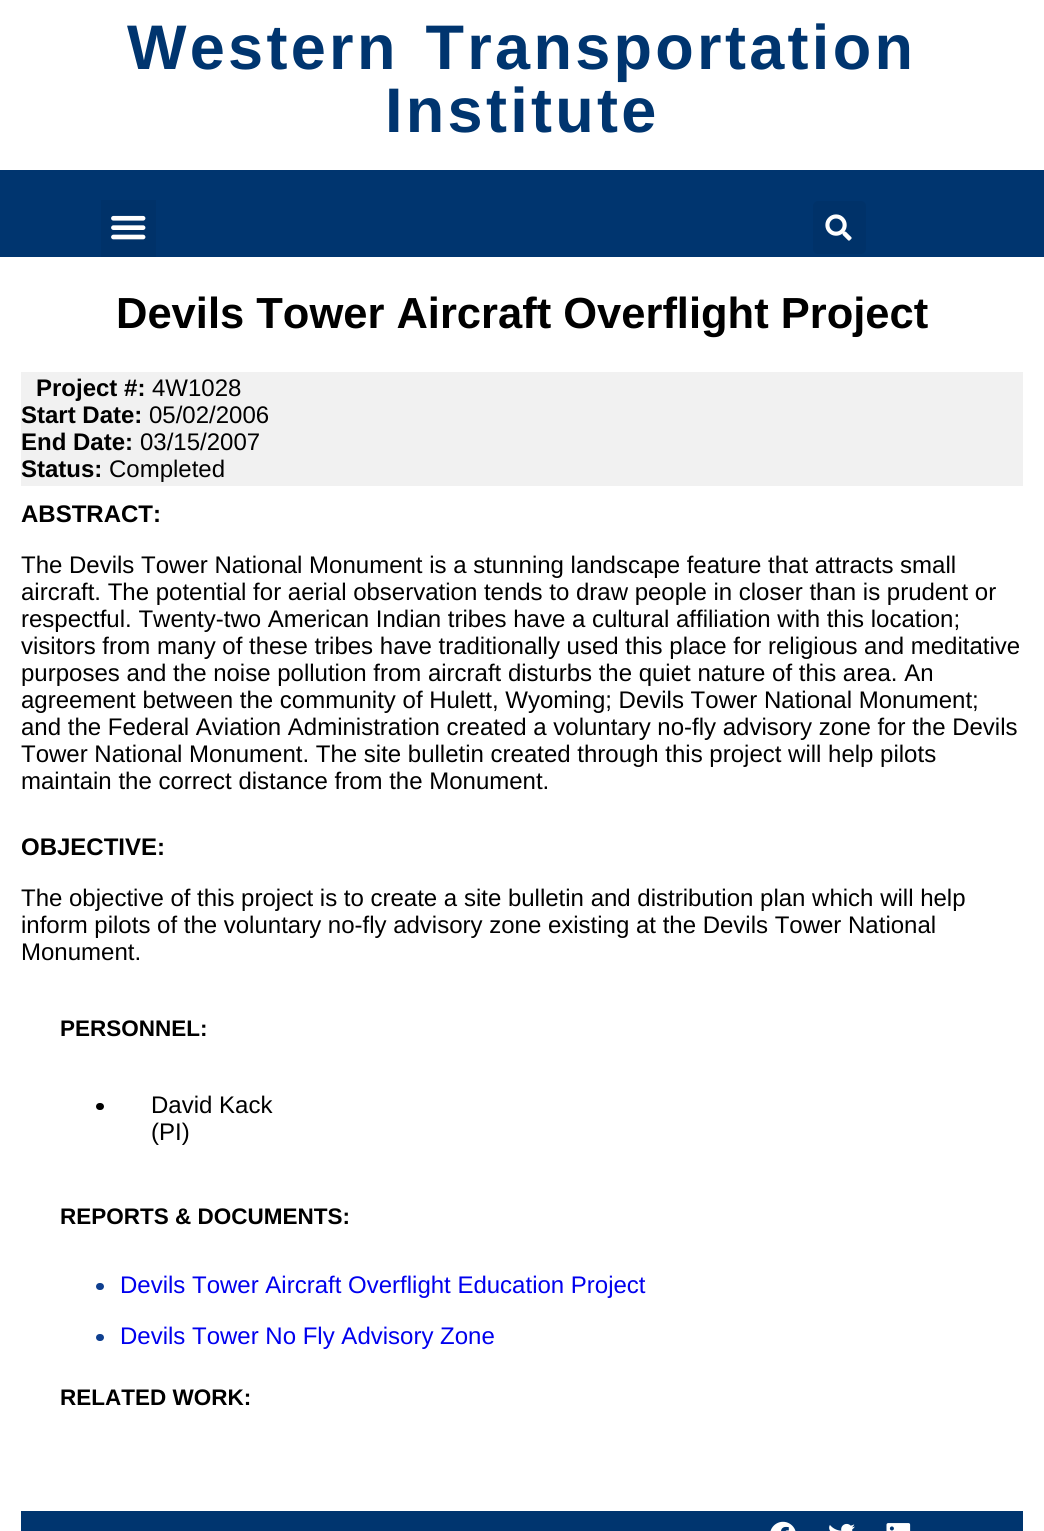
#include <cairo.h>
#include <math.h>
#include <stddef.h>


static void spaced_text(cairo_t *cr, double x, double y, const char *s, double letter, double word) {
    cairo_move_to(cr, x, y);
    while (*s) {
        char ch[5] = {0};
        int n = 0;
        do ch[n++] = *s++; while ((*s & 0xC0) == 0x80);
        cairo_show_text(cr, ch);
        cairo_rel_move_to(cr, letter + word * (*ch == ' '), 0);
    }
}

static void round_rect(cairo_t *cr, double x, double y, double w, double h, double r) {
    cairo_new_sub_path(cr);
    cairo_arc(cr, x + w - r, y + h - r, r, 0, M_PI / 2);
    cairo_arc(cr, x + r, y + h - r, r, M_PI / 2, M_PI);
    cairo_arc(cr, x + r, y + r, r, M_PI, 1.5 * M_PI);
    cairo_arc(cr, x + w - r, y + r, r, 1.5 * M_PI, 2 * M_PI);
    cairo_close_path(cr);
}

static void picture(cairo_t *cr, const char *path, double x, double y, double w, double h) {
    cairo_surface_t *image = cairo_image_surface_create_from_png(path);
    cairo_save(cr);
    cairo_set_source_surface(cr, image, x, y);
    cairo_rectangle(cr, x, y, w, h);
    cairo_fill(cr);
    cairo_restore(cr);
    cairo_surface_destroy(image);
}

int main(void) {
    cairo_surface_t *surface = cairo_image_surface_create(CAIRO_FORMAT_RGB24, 1044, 1531);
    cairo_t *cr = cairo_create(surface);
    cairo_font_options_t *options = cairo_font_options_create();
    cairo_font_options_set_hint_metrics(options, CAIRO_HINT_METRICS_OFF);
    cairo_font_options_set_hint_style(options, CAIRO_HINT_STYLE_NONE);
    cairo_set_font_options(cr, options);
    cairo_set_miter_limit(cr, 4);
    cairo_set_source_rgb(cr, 1, 1, 1);
    cairo_paint(cr);
    cairo_select_font_face(cr, "Liberation Sans", CAIRO_FONT_SLANT_NORMAL, CAIRO_FONT_WEIGHT_BOLD);
    cairo_set_font_size(cr, 63);
    cairo_set_source_rgb(cr, 0, 0.208, 0.435);
    spaced_text(cr, 127, 69, "Western Transportation", 3.3, 6);
    spaced_text(cr, 385, 132, "Institute", 3.3, 0);
    cairo_rectangle(cr, 0, 170, 1044, 87);
    cairo_fill(cr);
    cairo_set_source_rgb(cr, 0, 0.196, 0.412);
    cairo_rectangle(cr, 101, 200, 55, 57);
    cairo_fill(cr);
    picture(cr, "img1.png", 111, 215, 35, 25);
    round_rect(cr, 813, 201, 53, 53, 5);
    cairo_fill(cr);
    picture(cr, "img2.png", 825, 214, 27, 27);
    cairo_set_font_size(cr, 43.5);
    cairo_set_source_rgb(cr, 0, 0, 0);
    cairo_move_to(cr, 116, 328);
    cairo_show_text(cr, "Devils Tower Aircraft Overflight Project");
    cairo_set_source_rgb(cr, 0.945, 0.945, 0.945);
    cairo_rectangle(cr, 21, 372, 1002, 114);
    cairo_fill(cr);
    cairo_set_font_size(cr, 24);
    cairo_set_source_rgb(cr, 0, 0, 0);
    cairo_move_to(cr, 36, 396);
    cairo_show_text(cr, "Project #:");
    cairo_select_font_face(cr, "Liberation Sans", CAIRO_FONT_SLANT_NORMAL, CAIRO_FONT_WEIGHT_NORMAL);
    cairo_move_to(cr, 152, 396);
    cairo_show_text(cr, "4W1028");
    cairo_select_font_face(cr, "Liberation Sans", CAIRO_FONT_SLANT_NORMAL, CAIRO_FONT_WEIGHT_BOLD);
    cairo_move_to(cr, 21, 423);
    cairo_show_text(cr, "Start Date:");
    cairo_select_font_face(cr, "Liberation Sans", CAIRO_FONT_SLANT_NORMAL, CAIRO_FONT_WEIGHT_NORMAL);
    cairo_move_to(cr, 149, 423);
    cairo_show_text(cr, "05/02/2006");
    cairo_select_font_face(cr, "Liberation Sans", CAIRO_FONT_SLANT_NORMAL, CAIRO_FONT_WEIGHT_BOLD);
    cairo_move_to(cr, 21, 450);
    cairo_show_text(cr, "End Date:");
    cairo_select_font_face(cr, "Liberation Sans", CAIRO_FONT_SLANT_NORMAL, CAIRO_FONT_WEIGHT_NORMAL);
    cairo_move_to(cr, 140, 450);
    cairo_show_text(cr, "03/15/2007");
    cairo_select_font_face(cr, "Liberation Sans", CAIRO_FONT_SLANT_NORMAL, CAIRO_FONT_WEIGHT_BOLD);
    cairo_move_to(cr, 21, 477);
    cairo_show_text(cr, "Status:");
    cairo_select_font_face(cr, "Liberation Sans", CAIRO_FONT_SLANT_NORMAL, CAIRO_FONT_WEIGHT_NORMAL);
    cairo_move_to(cr, 109, 477);
    cairo_show_text(cr, "Completed");
    cairo_select_font_face(cr, "Liberation Sans", CAIRO_FONT_SLANT_NORMAL, CAIRO_FONT_WEIGHT_BOLD);
    cairo_move_to(cr, 21, 522);
    cairo_show_text(cr, "ABSTRACT:");
    cairo_select_font_face(cr, "Liberation Sans", CAIRO_FONT_SLANT_NORMAL, CAIRO_FONT_WEIGHT_NORMAL);
    cairo_move_to(cr, 21, 573);
    cairo_show_text(cr, "The Devils Tower National Monument is a stunning landscape feature that attracts small");
    cairo_move_to(cr, 21, 600);
    cairo_show_text(cr, "aircraft. The potential for aerial observation tends to draw people in closer than is prudent or");
    cairo_move_to(cr, 21, 627);
    cairo_show_text(cr, "respectful. Twenty-two American Indian tribes have a cultural affiliation with this location;");
    cairo_move_to(cr, 21, 654);
    cairo_show_text(cr, "visitors from many of these tribes have traditionally used this place for religious and meditative");
    cairo_move_to(cr, 21, 681);
    cairo_show_text(cr, "purposes and the noise pollution from aircraft disturbs the quiet nature of this area. An");
    cairo_move_to(cr, 21, 708);
    cairo_show_text(cr, "agreement between the community of Hulett, Wyoming; Devils Tower National Monument;");
    cairo_move_to(cr, 21, 735);
    cairo_show_text(cr, "and the Federal Aviation Administration created a voluntary no-fly advisory zone for the Devils");
    cairo_move_to(cr, 21, 762);
    cairo_show_text(cr, "Tower National Monument. The site bulletin created through this project will help pilots");
    cairo_move_to(cr, 21, 789);
    cairo_show_text(cr, "maintain the correct distance from the Monument.");
    cairo_select_font_face(cr, "Liberation Sans", CAIRO_FONT_SLANT_NORMAL, CAIRO_FONT_WEIGHT_BOLD);
    cairo_move_to(cr, 21, 855);
    cairo_show_text(cr, "OBJECTIVE:");
    cairo_select_font_face(cr, "Liberation Sans", CAIRO_FONT_SLANT_NORMAL, CAIRO_FONT_WEIGHT_NORMAL);
    cairo_move_to(cr, 21, 906);
    cairo_show_text(cr, "The objective of this project is to create a site bulletin and distribution plan which will help");
    cairo_move_to(cr, 21, 933);
    cairo_show_text(cr, "inform pilots of the voluntary no-fly advisory zone existing at the Devils Tower National");
    cairo_move_to(cr, 21, 960);
    cairo_show_text(cr, "Monument.");
    cairo_select_font_face(cr, "Liberation Sans", CAIRO_FONT_SLANT_NORMAL, CAIRO_FONT_WEIGHT_BOLD);
    cairo_set_font_size(cr, 22.5);
    cairo_move_to(cr, 60, 1036);
    cairo_show_text(cr, "PERSONNEL:");
    round_rect(cr, 96, 1103, 8, 7, 3.5);
    cairo_fill(cr);
    cairo_select_font_face(cr, "Liberation Sans", CAIRO_FONT_SLANT_NORMAL, CAIRO_FONT_WEIGHT_NORMAL);
    cairo_set_font_size(cr, 24);
    cairo_move_to(cr, 151, 1113);
    cairo_show_text(cr, "David Kack");
    cairo_move_to(cr, 151, 1140);
    cairo_show_text(cr, "(PI)");
    cairo_select_font_face(cr, "Liberation Sans", CAIRO_FONT_SLANT_NORMAL, CAIRO_FONT_WEIGHT_BOLD);
    cairo_set_font_size(cr, 22.5);
    cairo_move_to(cr, 60, 1224);
    cairo_show_text(cr, "REPORTS & DOCUMENTS:");
    cairo_set_source_rgb(cr, 0.059, 0.247, 0.561);
    round_rect(cr, 96, 1283, 8, 7, 3.5);
    cairo_fill(cr);
    cairo_select_font_face(cr, "Liberation Sans", CAIRO_FONT_SLANT_NORMAL, CAIRO_FONT_WEIGHT_NORMAL);
    cairo_set_font_size(cr, 24);
    cairo_set_source_rgb(cr, 0, 0, 0.933);
    cairo_move_to(cr, 120, 1293);
    cairo_show_text(cr, "Devils Tower Aircraft Overflight Education Project");
    cairo_set_source_rgb(cr, 0.059, 0.247, 0.561);
    round_rect(cr, 96, 1334, 8, 7, 3.5);
    cairo_fill(cr);
    cairo_set_source_rgb(cr, 0, 0, 0.933);
    cairo_move_to(cr, 120, 1344);
    cairo_show_text(cr, "Devils Tower No Fly Advisory Zone");
    cairo_select_font_face(cr, "Liberation Sans", CAIRO_FONT_SLANT_NORMAL, CAIRO_FONT_WEIGHT_BOLD);
    cairo_set_font_size(cr, 22.5);
    cairo_set_source_rgb(cr, 0, 0, 0);
    cairo_move_to(cr, 60, 1405);
    cairo_show_text(cr, "RELATED WORK:");
    cairo_set_source_rgb(cr, 0, 0.208, 0.435);
    cairo_rectangle(cr, 21, 1511, 1002, 20);
    cairo_fill(cr);
    picture(cr, "img3.png", 770, 1521, 26, 10);
    picture(cr, "img4.png", 829, 1523, 26, 8);
    picture(cr, "img5.png", 886, 1523, 25, 8);
    cairo_surface_write_to_png(surface, "page.png");
    cairo_font_options_destroy(options);
    cairo_destroy(cr);
    cairo_surface_destroy(surface);
    return 0;
}
